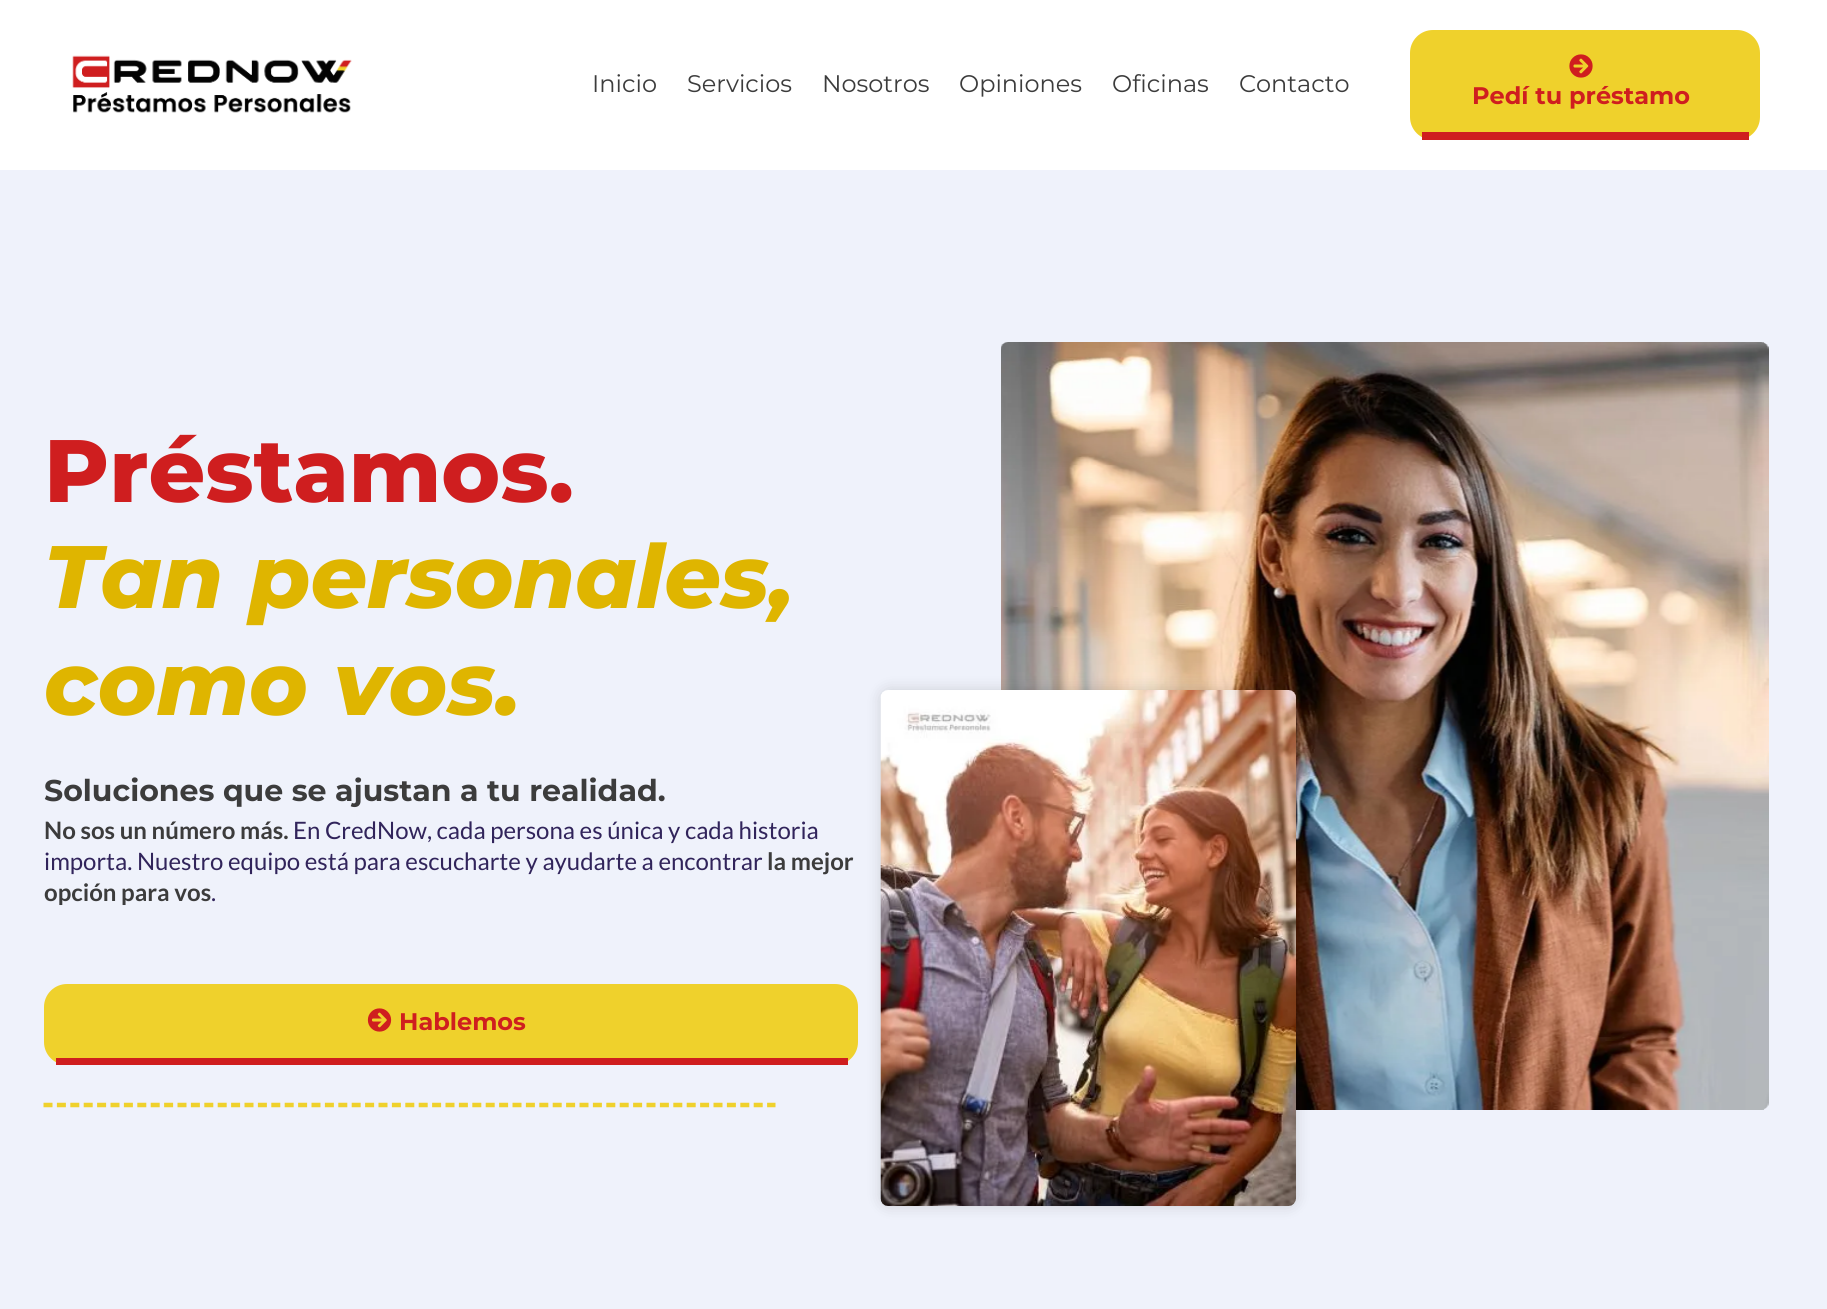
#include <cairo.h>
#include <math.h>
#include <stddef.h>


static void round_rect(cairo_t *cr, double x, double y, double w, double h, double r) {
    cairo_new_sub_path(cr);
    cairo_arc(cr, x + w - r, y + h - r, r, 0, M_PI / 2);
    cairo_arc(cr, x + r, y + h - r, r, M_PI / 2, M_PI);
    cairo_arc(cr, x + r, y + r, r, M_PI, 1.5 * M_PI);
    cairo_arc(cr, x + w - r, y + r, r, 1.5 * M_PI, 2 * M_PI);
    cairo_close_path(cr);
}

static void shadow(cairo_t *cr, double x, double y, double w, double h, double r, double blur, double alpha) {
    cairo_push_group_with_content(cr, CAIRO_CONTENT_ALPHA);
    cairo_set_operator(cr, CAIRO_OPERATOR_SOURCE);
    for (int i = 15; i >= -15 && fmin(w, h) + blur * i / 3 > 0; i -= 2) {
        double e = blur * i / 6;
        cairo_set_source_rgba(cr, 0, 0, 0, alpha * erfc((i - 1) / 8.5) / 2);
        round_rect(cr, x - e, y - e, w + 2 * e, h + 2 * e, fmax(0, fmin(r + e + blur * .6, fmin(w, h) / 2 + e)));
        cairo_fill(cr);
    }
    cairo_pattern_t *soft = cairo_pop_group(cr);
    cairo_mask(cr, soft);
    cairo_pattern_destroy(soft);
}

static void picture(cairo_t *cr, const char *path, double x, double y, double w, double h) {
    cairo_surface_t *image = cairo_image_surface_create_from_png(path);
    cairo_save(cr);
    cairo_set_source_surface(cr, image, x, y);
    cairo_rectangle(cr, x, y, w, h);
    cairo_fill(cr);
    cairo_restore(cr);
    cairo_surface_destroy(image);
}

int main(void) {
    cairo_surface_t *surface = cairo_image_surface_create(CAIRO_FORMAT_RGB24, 1827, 1309);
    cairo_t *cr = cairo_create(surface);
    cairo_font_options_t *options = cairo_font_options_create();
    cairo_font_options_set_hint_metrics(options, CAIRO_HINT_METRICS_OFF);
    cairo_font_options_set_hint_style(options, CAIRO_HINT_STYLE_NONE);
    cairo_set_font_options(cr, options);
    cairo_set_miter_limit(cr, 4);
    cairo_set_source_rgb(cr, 1, 1, 1);
    cairo_paint(cr);
    picture(cr, "img1.png", 72, 55, 280, 58);
    cairo_select_font_face(cr, "Montserrat", CAIRO_FONT_SLANT_NORMAL, CAIRO_FONT_WEIGHT_NORMAL);
    cairo_set_font_size(cr, 24);
    cairo_set_source_rgb(cr, 0.235, 0.235, 0.235);
    cairo_move_to(cr, 592, 92);
    cairo_show_text(cr, "Inicio");
    cairo_move_to(cr, 687, 92);
    cairo_show_text(cr, "Servicios");
    cairo_move_to(cr, 822, 92);
    cairo_show_text(cr, "Nosotros");
    cairo_move_to(cr, 959, 92);
    cairo_show_text(cr, "Opiniones");
    cairo_move_to(cr, 1112, 92);
    cairo_show_text(cr, "Oficinas");
    cairo_move_to(cr, 1239, 92);
    cairo_show_text(cr, "Contacto");
    cairo_set_source_rgb(cr, 0.937, 0.82, 0.173);
    round_rect(cr, 1410, 30, 350, 110, 23);
    cairo_fill(cr);
    cairo_set_source_rgb(cr, 0.812, 0.118, 0.122);
    cairo_rectangle(cr, 1422, 132, 327, 8);
    cairo_fill(cr);
    picture(cr, "img2.png", 1569, 54, 24, 24);
    cairo_select_font_face(cr, "Montserrat", CAIRO_FONT_SLANT_NORMAL, CAIRO_FONT_WEIGHT_BOLD);
    cairo_move_to(cr, 1472, 104);
    cairo_show_text(cr, "Pedí tu préstamo");
    cairo_set_source_rgb(cr, 0.937, 0.949, 0.984);
    cairo_rectangle(cr, 0, 170, 1827, 1139);
    cairo_fill(cr);
    cairo_select_font_face(cr, "Montserrat ExtraBold", CAIRO_FONT_SLANT_NORMAL, CAIRO_FONT_WEIGHT_NORMAL);
    cairo_set_font_size(cr, 88.5);
    cairo_set_source_rgb(cr, 0.812, 0.118, 0.122);
    cairo_move_to(cr, 44, 502);
    cairo_show_text(cr, "Préstamos.");
    cairo_select_font_face(cr, "Montserrat ExtraBold", CAIRO_FONT_SLANT_ITALIC, CAIRO_FONT_WEIGHT_NORMAL);
    cairo_set_source_rgb(cr, 0.875, 0.71, 0);
    cairo_move_to(cr, 44, 608);
    cairo_show_text(cr, "Tan personales,");
    cairo_move_to(cr, 44, 715);
    cairo_show_text(cr, "como vos.");
    cairo_select_font_face(cr, "Montserrat", CAIRO_FONT_SLANT_NORMAL, CAIRO_FONT_WEIGHT_BOLD);
    cairo_set_font_size(cr, 30);
    cairo_set_source_rgb(cr, 0.235, 0.235, 0.235);
    cairo_move_to(cr, 44, 801);
    cairo_show_text(cr, "Soluciones que se ajustan a tu realidad.");
    cairo_select_font_face(cr, "Lato", CAIRO_FONT_SLANT_NORMAL, CAIRO_FONT_WEIGHT_BOLD);
    cairo_set_font_size(cr, 24);
    cairo_move_to(cr, 44, 839);
    cairo_show_text(cr, "No sos un número más.");
    cairo_select_font_face(cr, "Lato", CAIRO_FONT_SLANT_NORMAL, CAIRO_FONT_WEIGHT_NORMAL);
    cairo_set_source_rgb(cr, 0.192, 0.141, 0.357);
    cairo_move_to(cr, 293, 839);
    cairo_show_text(cr, "En CredNow, cada persona es única y cada historia");
    cairo_move_to(cr, 44, 870);
    cairo_show_text(cr, "importa. Nuestro equipo está para escucharte y ayudarte a encontrar");
    cairo_select_font_face(cr, "Lato", CAIRO_FONT_SLANT_NORMAL, CAIRO_FONT_WEIGHT_BOLD);
    cairo_set_source_rgb(cr, 0.235, 0.235, 0.235);
    cairo_move_to(cr, 767, 870);
    cairo_show_text(cr, "la mejor");
    cairo_move_to(cr, 44, 901);
    cairo_show_text(cr, "opción para vos");
    cairo_select_font_face(cr, "Lato", CAIRO_FONT_SLANT_NORMAL, CAIRO_FONT_WEIGHT_NORMAL);
    cairo_set_source_rgb(cr, 0.192, 0.141, 0.357);
    cairo_move_to(cr, 211, 901);
    cairo_show_text(cr, ".");
    cairo_set_source_rgb(cr, 0.937, 0.82, 0.173);
    round_rect(cr, 44, 984, 814, 81, 23);
    cairo_fill(cr);
    cairo_set_source_rgb(cr, 0.812, 0.118, 0.122);
    cairo_rectangle(cr, 56, 1058, 792, 7);
    cairo_fill(cr);
    picture(cr, "img3.png", 367, 1008, 25, 24);
    cairo_select_font_face(cr, "Montserrat", CAIRO_FONT_SLANT_NORMAL, CAIRO_FONT_WEIGHT_BOLD);
    cairo_move_to(cr, 399, 1030);
    cairo_show_text(cr, "Hablemos");
    cairo_new_path(cr);
    cairo_move_to(cr, 43.5, 1105);
    cairo_line_to(cr, 775.5, 1105);
    cairo_set_source_rgb(cr, 0.937, 0.82, 0.173);
    cairo_set_line_width(cr, 4.5);
    cairo_set_dash(cr, (double[]){9, 4.4}, 2, 0);
    cairo_stroke(cr);
    picture(cr, "img4.png", 1001, 342, 768, 768);
    cairo_set_source_rgb(cr, 0, 0, 0);
    shadow(cr, 881, 690, 415, 516, 8, 7.5, 0.15);
    picture(cr, "img5.png", 880, 690, 416, 516);
    cairo_surface_write_to_png(surface, "page.png");
    cairo_font_options_destroy(options);
    cairo_destroy(cr);
    cairo_surface_destroy(surface);
    return 0;
}
